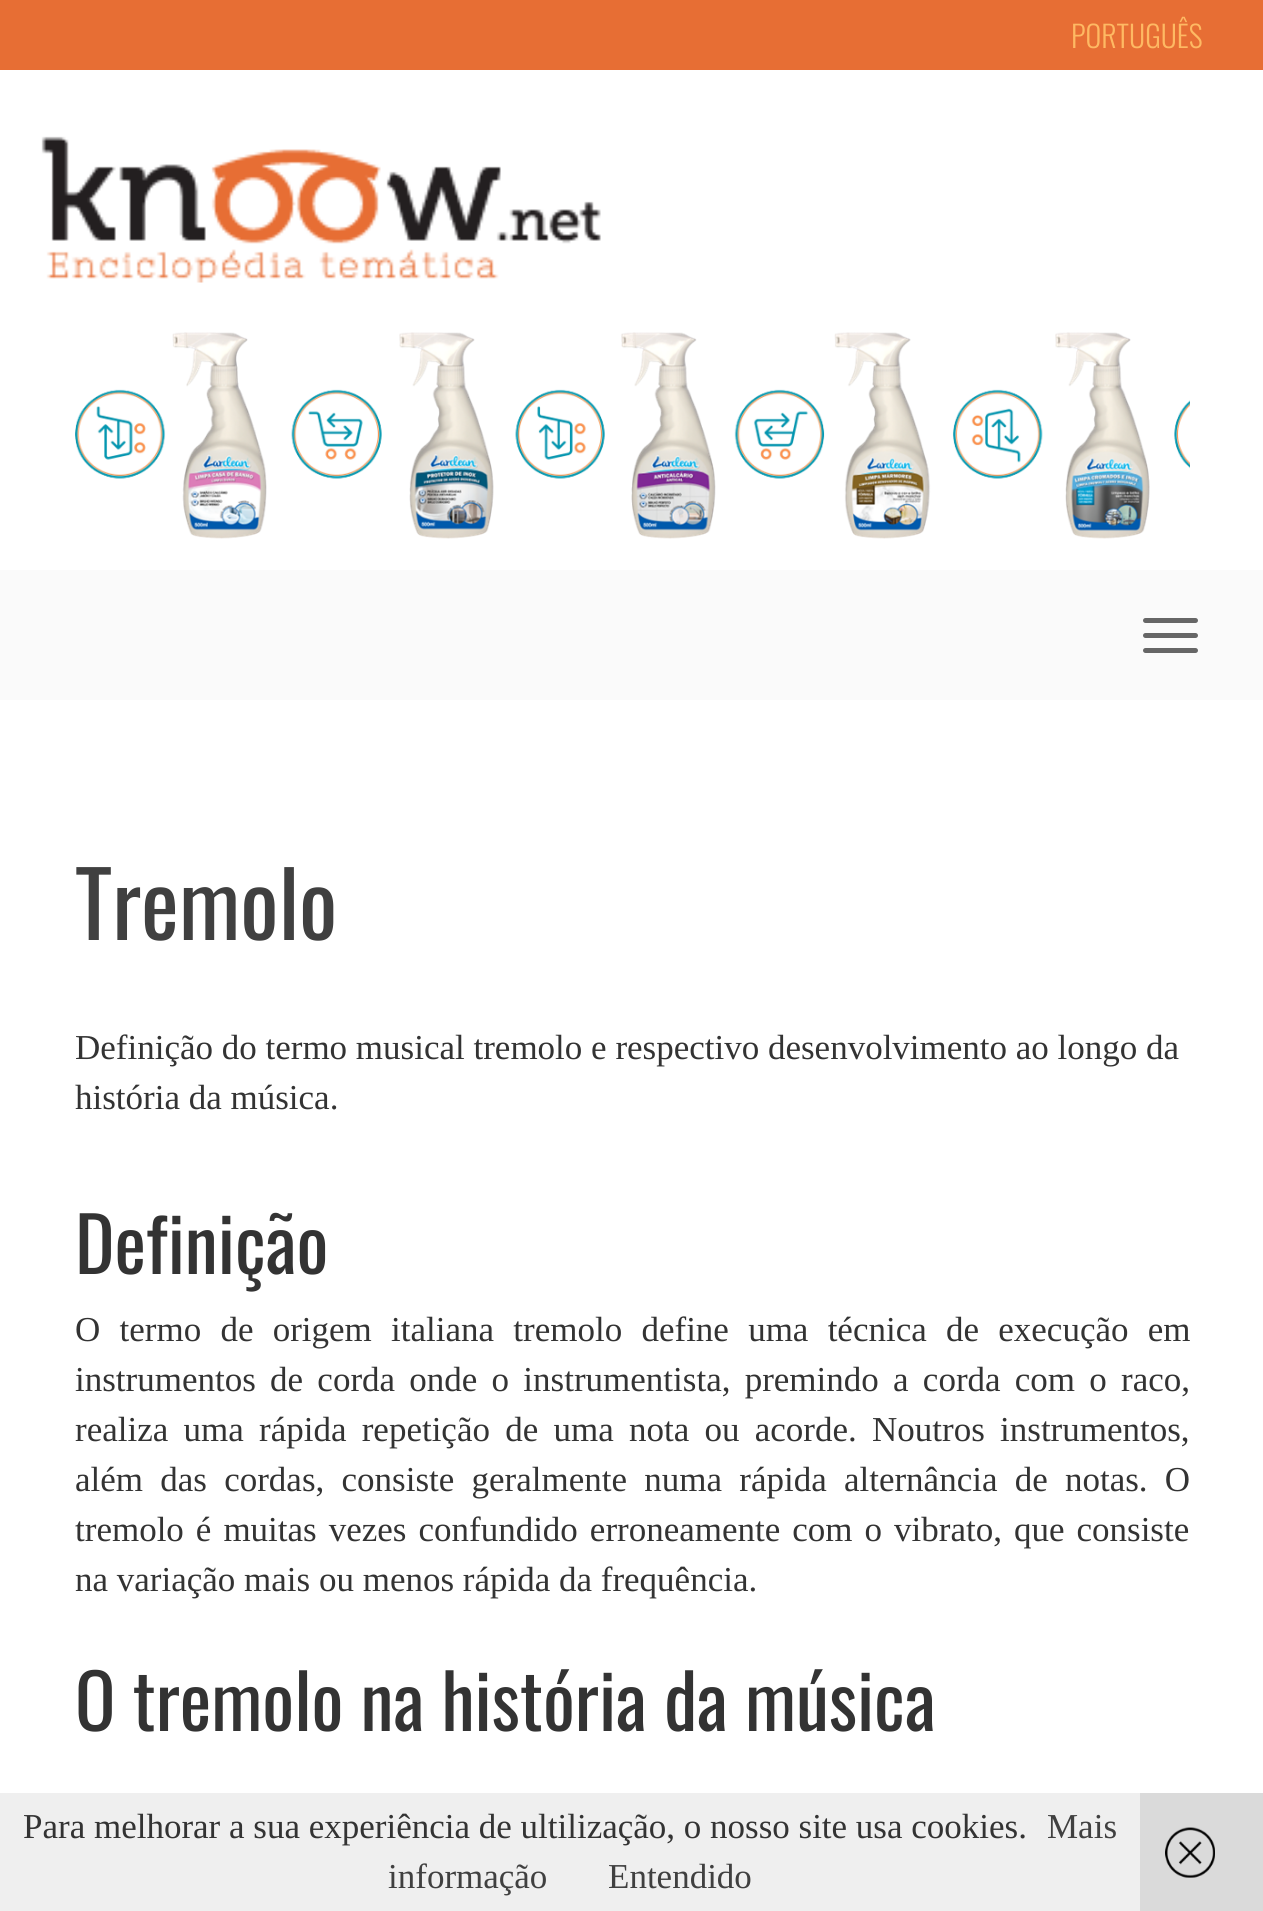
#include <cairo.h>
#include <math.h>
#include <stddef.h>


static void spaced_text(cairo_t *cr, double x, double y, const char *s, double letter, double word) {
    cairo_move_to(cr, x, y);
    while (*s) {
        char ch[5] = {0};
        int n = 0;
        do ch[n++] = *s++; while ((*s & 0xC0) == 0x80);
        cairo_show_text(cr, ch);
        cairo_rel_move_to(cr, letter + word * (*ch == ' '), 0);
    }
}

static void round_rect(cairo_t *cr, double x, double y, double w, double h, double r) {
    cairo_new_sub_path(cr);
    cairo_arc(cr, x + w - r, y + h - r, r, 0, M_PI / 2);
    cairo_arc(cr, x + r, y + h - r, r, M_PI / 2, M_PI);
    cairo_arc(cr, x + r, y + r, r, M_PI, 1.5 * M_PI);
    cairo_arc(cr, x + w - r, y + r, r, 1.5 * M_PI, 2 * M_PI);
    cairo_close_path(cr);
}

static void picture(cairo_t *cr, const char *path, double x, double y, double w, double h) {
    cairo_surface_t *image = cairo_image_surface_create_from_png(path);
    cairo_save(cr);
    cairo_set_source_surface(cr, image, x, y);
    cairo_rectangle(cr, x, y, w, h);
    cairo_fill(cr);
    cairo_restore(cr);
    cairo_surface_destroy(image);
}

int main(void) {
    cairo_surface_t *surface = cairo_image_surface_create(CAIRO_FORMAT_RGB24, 1263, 1911);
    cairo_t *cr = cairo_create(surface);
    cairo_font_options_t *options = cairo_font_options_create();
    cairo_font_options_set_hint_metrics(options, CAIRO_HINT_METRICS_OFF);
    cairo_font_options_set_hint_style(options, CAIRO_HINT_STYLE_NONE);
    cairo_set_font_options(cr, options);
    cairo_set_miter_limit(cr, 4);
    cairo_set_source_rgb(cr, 1, 1, 1);
    cairo_paint(cr);
    cairo_set_source_rgb(cr, 0.906, 0.431, 0.204);
    cairo_rectangle(cr, 0, 0, 1263, 70);
    cairo_fill(cr);
    cairo_select_font_face(cr, "Oswald Light", CAIRO_FONT_SLANT_NORMAL, CAIRO_FONT_WEIGHT_NORMAL);
    cairo_set_font_size(cr, 30);
    cairo_set_source_rgb(cr, 0.996, 0.725, 0.388);
    cairo_move_to(cr, 1071, 48);
    cairo_show_text(cr, "PORTUGUÊS");
    picture(cr, "img1.png", 41, 136, 560, 147);
    picture(cr, "img2.png", 75, 332, 1115, 207);
    cairo_set_source_rgb(cr, 0.98, 0.98, 0.98);
    cairo_rectangle(cr, 0, 570, 1263, 130);
    cairo_fill(cr);
    cairo_set_source_rgb(cr, 0.4, 0.4, 0.4);
    round_rect(cr, 1143, 618, 55, 5, 2.5);
    cairo_fill(cr);
    round_rect(cr, 1143, 633, 55, 5, 2.5);
    cairo_fill(cr);
    round_rect(cr, 1143, 648, 55, 5, 2.5);
    cairo_fill(cr);
    cairo_select_font_face(cr, "Oswald", CAIRO_FONT_SLANT_NORMAL, CAIRO_FONT_WEIGHT_NORMAL);
    cairo_set_font_size(cr, 90);
    cairo_set_source_rgb(cr, 0.251, 0.251, 0.251);
    cairo_move_to(cr, 75, 940);
    cairo_show_text(cr, "Tremolo");
    cairo_select_font_face(cr, "Liberation Serif", CAIRO_FONT_SLANT_NORMAL, CAIRO_FONT_WEIGHT_NORMAL);
    cairo_set_font_size(cr, 35);
    cairo_set_source_rgb(cr, 0.2, 0.2, 0.2);
    cairo_move_to(cr, 75, 1059);
    cairo_show_text(cr, "Definição do termo musical tremolo e respectivo desenvolvimento ao longo da");
    cairo_move_to(cr, 75, 1109);
    cairo_show_text(cr, "história da música.");
    cairo_select_font_face(cr, "Oswald", CAIRO_FONT_SLANT_NORMAL, CAIRO_FONT_WEIGHT_NORMAL);
    cairo_set_font_size(cr, 75);
    cairo_move_to(cr, 75, 1274);
    cairo_show_text(cr, "Definição");
    cairo_select_font_face(cr, "Liberation Serif", CAIRO_FONT_SLANT_NORMAL, CAIRO_FONT_WEIGHT_NORMAL);
    cairo_set_font_size(cr, 35);
    spaced_text(cr, 75, 1341, "O termo de origem italiana tremolo define uma técnica de execução em", 0, 10.5);
    spaced_text(cr, 75, 1391, "instrumentos de corda onde o instrumentista, premindo a corda com o raco,", 0, 5.5);
    spaced_text(cr, 75, 1441, "realiza uma rápida repetição de uma nota ou acorde. Noutros instrumentos,", 0, 6.5);
    spaced_text(cr, 75, 1491, "além das cordas, consiste geralmente numa rápida alternância de notas. O", 0, 8.5);
    spaced_text(cr, 75, 1541, "tremolo é muitas vezes confundido erroneamente com o vibrato, que consiste", 0, 3.25);
    cairo_move_to(cr, 75, 1591);
    cairo_show_text(cr, "na variação mais ou menos rápida da frequência.");
    cairo_select_font_face(cr, "Oswald", CAIRO_FONT_SLANT_NORMAL, CAIRO_FONT_WEIGHT_NORMAL);
    cairo_set_font_size(cr, 75);
    cairo_move_to(cr, 75, 1731);
    cairo_show_text(cr, "O tremolo na história da música");
    cairo_set_source_rgba(cr, 0.933, 0.933, 0.933, 0.9);
    cairo_rectangle(cr, 0, 1793, 1263, 118);
    cairo_fill(cr);
    cairo_select_font_face(cr, "Liberation Serif", CAIRO_FONT_SLANT_NORMAL, CAIRO_FONT_WEIGHT_NORMAL);
    cairo_set_font_size(cr, 35);
    cairo_set_source_rgb(cr, 0.2, 0.2, 0.2);
    cairo_move_to(cr, 23, 1838);
    cairo_show_text(cr, "Para melhorar a sua experiência de ultilização, o nosso site usa cookies.");
    cairo_set_source_rgb(cr, 0.251, 0.251, 0.251);
    cairo_move_to(cr, 1047, 1838);
    cairo_show_text(cr, "Mais");
    cairo_move_to(cr, 388, 1888);
    cairo_show_text(cr, "informação");
    cairo_move_to(cr, 608, 1888);
    cairo_show_text(cr, "Entendido");
    cairo_set_source_rgba(cr, 0.8, 0.8, 0.8, 0.6);
    cairo_rectangle(cr, 1140, 1793, 123, 118);
    cairo_fill(cr);
    picture(cr, "img3.png", 1165, 1827, 50, 51);
    cairo_surface_write_to_png(surface, "page.png");
    cairo_font_options_destroy(options);
    cairo_destroy(cr);
    cairo_surface_destroy(surface);
    return 0;
}
